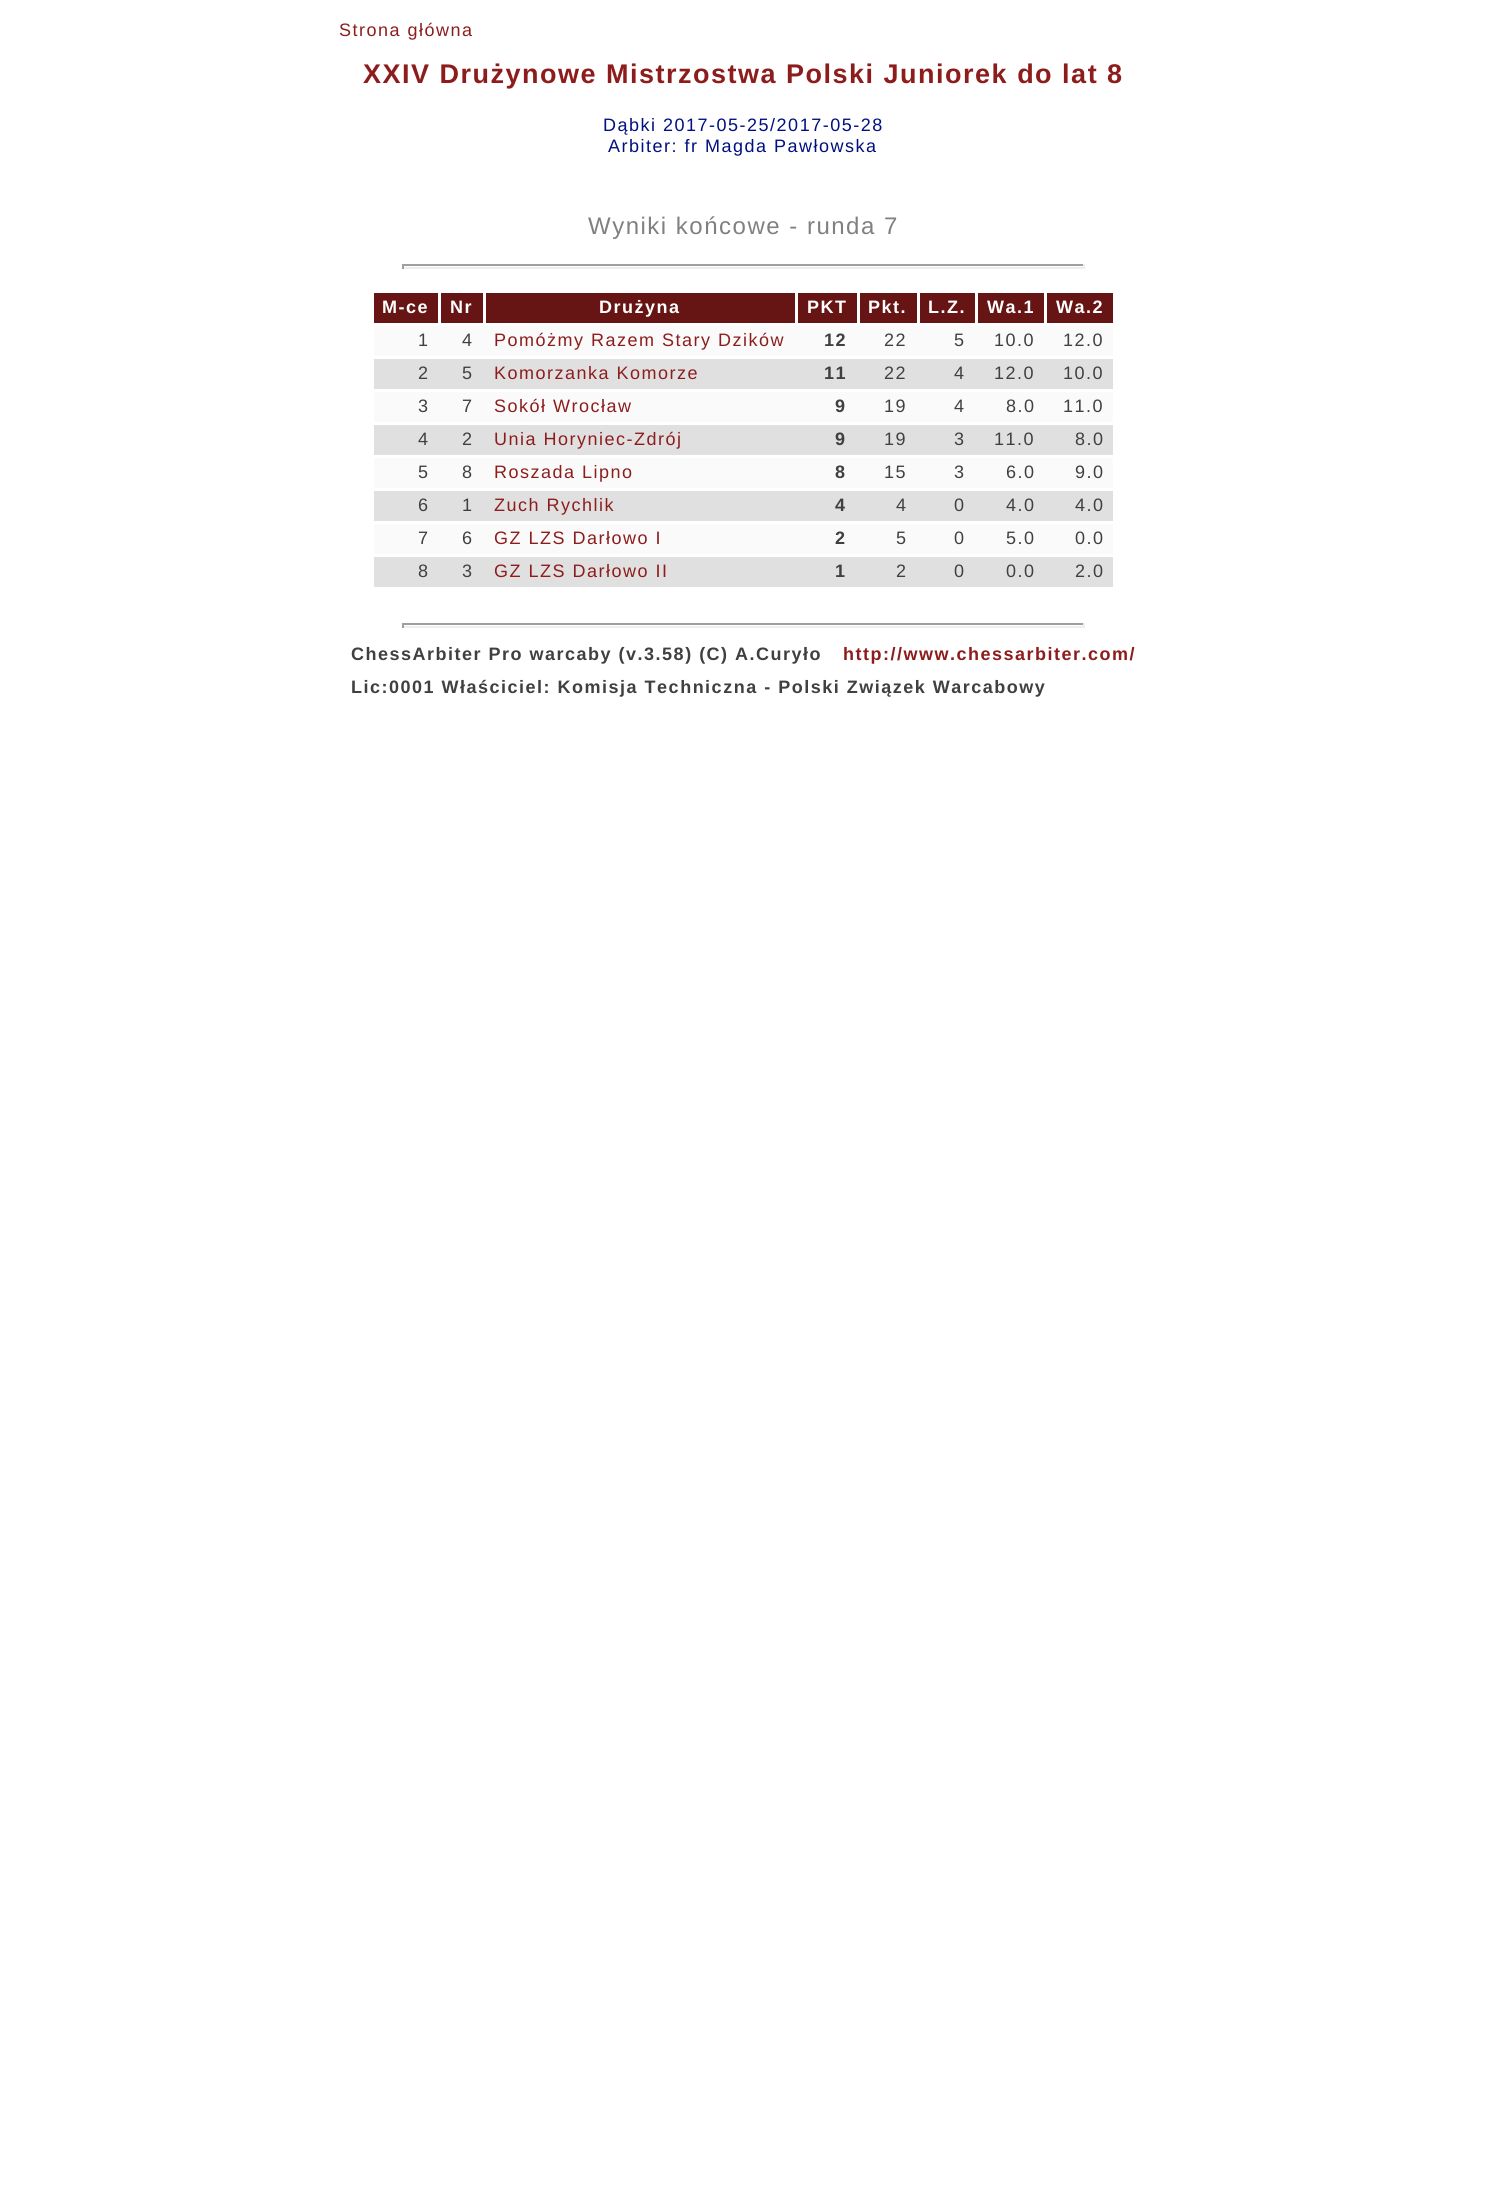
#include <cairo.h>
#include <math.h>
#include <stddef.h>


static void spaced_text(cairo_t *cr, double x, double y, const char *s, double letter, double word) {
    cairo_move_to(cr, x, y);
    while (*s) {
        char ch[5] = {0};
        int n = 0;
        do ch[n++] = *s++; while ((*s & 0xC0) == 0x80);
        cairo_show_text(cr, ch);
        cairo_rel_move_to(cr, letter + word * (*ch == ' '), 0);
    }
}

int main(void) {
    cairo_surface_t *surface = cairo_image_surface_create(CAIRO_FORMAT_RGB24, 1486, 2206);
    cairo_t *cr = cairo_create(surface);
    cairo_font_options_t *options = cairo_font_options_create();
    cairo_font_options_set_hint_metrics(options, CAIRO_HINT_METRICS_OFF);
    cairo_font_options_set_hint_style(options, CAIRO_HINT_STYLE_NONE);
    cairo_set_font_options(cr, options);
    cairo_set_miter_limit(cr, 4);
    cairo_set_source_rgb(cr, 1, 1, 1);
    cairo_paint(cr);
    cairo_select_font_face(cr, "Liberation Sans", CAIRO_FONT_SLANT_NORMAL, CAIRO_FONT_WEIGHT_NORMAL);
    cairo_set_font_size(cr, 18);
    cairo_set_source_rgb(cr, 0.553, 0.114, 0.114);
    spaced_text(cr, 339, 36, "Strona główna", 1.5, 0);
    cairo_select_font_face(cr, "Liberation Sans", CAIRO_FONT_SLANT_NORMAL, CAIRO_FONT_WEIGHT_BOLD);
    cairo_set_font_size(cr, 27);
    spaced_text(cr, 363, 83, "XXIV Drużynowe Mistrzostwa Polski Juniorek do lat 8", 1.5, 0);
    cairo_select_font_face(cr, "Liberation Sans", CAIRO_FONT_SLANT_NORMAL, CAIRO_FONT_WEIGHT_NORMAL);
    cairo_set_font_size(cr, 18);
    cairo_set_source_rgb(cr, 0, 0.063, 0.502);
    spaced_text(cr, 603, 131, "Dąbki 2017-05-25/2017-05-28", 1.5, 0);
    spaced_text(cr, 608, 152, "Arbiter: fr Magda Pawłowska", 1.5, 0);
    cairo_set_font_size(cr, 24);
    cairo_set_source_rgb(cr, 0.502, 0.502, 0.502);
    spaced_text(cr, 588, 234, "Wyniki końcowe - runda 7", 1.5, 0);
    cairo_set_source_rgb(cr, 0.624, 0.624, 0.624);
    cairo_rectangle(cr, 402, 264, 683, 2);
    cairo_fill(cr);
    cairo_set_source_rgb(cr, 0.933, 0.933, 0.933);
    cairo_rectangle(cr, 1083, 264, 2, 5);
    cairo_fill(cr);
    cairo_rectangle(cr, 402, 267, 683, 2);
    cairo_fill(cr);
    cairo_set_source_rgb(cr, 0.624, 0.624, 0.624);
    cairo_rectangle(cr, 402, 264, 2, 5);
    cairo_fill(cr);
    cairo_set_source_rgb(cr, 0.404, 0.082, 0.082);
    cairo_rectangle(cr, 374, 293, 64, 30);
    cairo_fill(cr);
    cairo_select_font_face(cr, "Liberation Sans", CAIRO_FONT_SLANT_NORMAL, CAIRO_FONT_WEIGHT_BOLD);
    cairo_set_font_size(cr, 18);
    cairo_set_source_rgb(cr, 1, 1, 1);
    spaced_text(cr, 382, 313, "M-ce", 1.5, 0);
    cairo_set_source_rgb(cr, 0.404, 0.082, 0.082);
    cairo_rectangle(cr, 441, 293, 42, 30);
    cairo_fill(cr);
    cairo_set_source_rgb(cr, 1, 1, 1);
    spaced_text(cr, 450, 313, "Nr", 1.5, 0);
    cairo_set_source_rgb(cr, 0.404, 0.082, 0.082);
    cairo_rectangle(cr, 486, 293, 309, 30);
    cairo_fill(cr);
    cairo_set_source_rgb(cr, 1, 1, 1);
    spaced_text(cr, 599, 313, "Drużyna", 1.5, 0);
    cairo_set_source_rgb(cr, 0.404, 0.082, 0.082);
    cairo_rectangle(cr, 798, 293, 59, 30);
    cairo_fill(cr);
    cairo_set_source_rgb(cr, 1, 1, 1);
    spaced_text(cr, 807, 313, "PKT", 1.5, 0);
    cairo_set_source_rgb(cr, 0.404, 0.082, 0.082);
    cairo_rectangle(cr, 860, 293, 57, 30);
    cairo_fill(cr);
    cairo_set_source_rgb(cr, 1, 1, 1);
    spaced_text(cr, 868, 313, "Pkt.", 1.5, 0);
    cairo_set_source_rgb(cr, 0.404, 0.082, 0.082);
    cairo_rectangle(cr, 920, 293, 55, 30);
    cairo_fill(cr);
    cairo_set_source_rgb(cr, 1, 1, 1);
    spaced_text(cr, 928, 313, "L.Z.", 1.5, 0);
    cairo_set_source_rgb(cr, 0.404, 0.082, 0.082);
    cairo_rectangle(cr, 978, 293, 66, 30);
    cairo_fill(cr);
    cairo_set_source_rgb(cr, 1, 1, 1);
    spaced_text(cr, 987, 313, "Wa.1", 1.5, 0);
    cairo_set_source_rgb(cr, 0.404, 0.082, 0.082);
    cairo_rectangle(cr, 1047, 293, 66, 30);
    cairo_fill(cr);
    cairo_set_source_rgb(cr, 1, 1, 1);
    spaced_text(cr, 1056, 313, "Wa.2", 1.5, 0);
    cairo_set_source_rgb(cr, 0.98, 0.98, 0.98);
    cairo_rectangle(cr, 374, 326, 739, 30);
    cairo_fill(cr);
    cairo_select_font_face(cr, "Liberation Sans", CAIRO_FONT_SLANT_NORMAL, CAIRO_FONT_WEIGHT_NORMAL);
    cairo_set_source_rgb(cr, 0.251, 0.251, 0.251);
    spaced_text(cr, 418, 346, "1", 1.5, 0);
    spaced_text(cr, 462, 346, "4", 1.5, 0);
    cairo_set_source_rgb(cr, 0.553, 0.114, 0.114);
    spaced_text(cr, 494, 346, "Pomóżmy Razem Stary Dzików", 1.5, 0);
    cairo_select_font_face(cr, "Liberation Sans", CAIRO_FONT_SLANT_NORMAL, CAIRO_FONT_WEIGHT_BOLD);
    cairo_set_source_rgb(cr, 0.251, 0.251, 0.251);
    spaced_text(cr, 824, 346, "12", 1.5, 0);
    cairo_select_font_face(cr, "Liberation Sans", CAIRO_FONT_SLANT_NORMAL, CAIRO_FONT_WEIGHT_NORMAL);
    spaced_text(cr, 884, 346, "22", 1.5, 0);
    spaced_text(cr, 954, 346, "5", 1.5, 0);
    spaced_text(cr, 994, 346, "10.0", 1.5, 0);
    spaced_text(cr, 1063, 346, "12.0", 1.5, 0);
    cairo_set_source_rgb(cr, 0.878, 0.878, 0.878);
    cairo_rectangle(cr, 374, 359, 739, 30);
    cairo_fill(cr);
    cairo_set_source_rgb(cr, 0.251, 0.251, 0.251);
    spaced_text(cr, 418, 379, "2", 1.5, 0);
    spaced_text(cr, 462, 379, "5", 1.5, 0);
    cairo_set_source_rgb(cr, 0.553, 0.114, 0.114);
    spaced_text(cr, 494, 379, "Komorzanka Komorze", 1.5, 0);
    cairo_select_font_face(cr, "Liberation Sans", CAIRO_FONT_SLANT_NORMAL, CAIRO_FONT_WEIGHT_BOLD);
    cairo_set_source_rgb(cr, 0.251, 0.251, 0.251);
    spaced_text(cr, 824, 379, "11", 1.5, 0);
    cairo_select_font_face(cr, "Liberation Sans", CAIRO_FONT_SLANT_NORMAL, CAIRO_FONT_WEIGHT_NORMAL);
    spaced_text(cr, 884, 379, "22", 1.5, 0);
    spaced_text(cr, 954, 379, "4", 1.5, 0);
    spaced_text(cr, 994, 379, "12.0", 1.5, 0);
    spaced_text(cr, 1063, 379, "10.0", 1.5, 0);
    cairo_set_source_rgb(cr, 0.98, 0.98, 0.98);
    cairo_rectangle(cr, 374, 392, 739, 30);
    cairo_fill(cr);
    cairo_set_source_rgb(cr, 0.251, 0.251, 0.251);
    spaced_text(cr, 418, 412, "3", 1.5, 0);
    spaced_text(cr, 462, 412, "7", 1.5, 0);
    cairo_set_source_rgb(cr, 0.553, 0.114, 0.114);
    spaced_text(cr, 494, 412, "Sokół Wrocław", 1.5, 0);
    cairo_select_font_face(cr, "Liberation Sans", CAIRO_FONT_SLANT_NORMAL, CAIRO_FONT_WEIGHT_BOLD);
    cairo_set_source_rgb(cr, 0.251, 0.251, 0.251);
    spaced_text(cr, 835, 412, "9", 1.5, 0);
    cairo_select_font_face(cr, "Liberation Sans", CAIRO_FONT_SLANT_NORMAL, CAIRO_FONT_WEIGHT_NORMAL);
    spaced_text(cr, 884, 412, "19", 1.5, 0);
    spaced_text(cr, 954, 412, "4", 1.5, 0);
    spaced_text(cr, 1006, 412, "8.0", 1.5, 0);
    spaced_text(cr, 1063, 412, "11.0", 1.5, 0);
    cairo_set_source_rgb(cr, 0.878, 0.878, 0.878);
    cairo_rectangle(cr, 374, 425, 739, 30);
    cairo_fill(cr);
    cairo_set_source_rgb(cr, 0.251, 0.251, 0.251);
    spaced_text(cr, 418, 445, "4", 1.5, 0);
    spaced_text(cr, 462, 445, "2", 1.5, 0);
    cairo_set_source_rgb(cr, 0.553, 0.114, 0.114);
    spaced_text(cr, 494, 445, "Unia Horyniec-Zdrój", 1.5, 0);
    cairo_select_font_face(cr, "Liberation Sans", CAIRO_FONT_SLANT_NORMAL, CAIRO_FONT_WEIGHT_BOLD);
    cairo_set_source_rgb(cr, 0.251, 0.251, 0.251);
    spaced_text(cr, 835, 445, "9", 1.5, 0);
    cairo_select_font_face(cr, "Liberation Sans", CAIRO_FONT_SLANT_NORMAL, CAIRO_FONT_WEIGHT_NORMAL);
    spaced_text(cr, 884, 445, "19", 1.5, 0);
    spaced_text(cr, 954, 445, "3", 1.5, 0);
    spaced_text(cr, 994, 445, "11.0", 1.5, 0);
    spaced_text(cr, 1075, 445, "8.0", 1.5, 0);
    cairo_set_source_rgb(cr, 0.98, 0.98, 0.98);
    cairo_rectangle(cr, 374, 458, 739, 30);
    cairo_fill(cr);
    cairo_set_source_rgb(cr, 0.251, 0.251, 0.251);
    spaced_text(cr, 418, 478, "5", 1.5, 0);
    spaced_text(cr, 462, 478, "8", 1.5, 0);
    cairo_set_source_rgb(cr, 0.553, 0.114, 0.114);
    spaced_text(cr, 494, 478, "Roszada Lipno", 1.5, 0);
    cairo_select_font_face(cr, "Liberation Sans", CAIRO_FONT_SLANT_NORMAL, CAIRO_FONT_WEIGHT_BOLD);
    cairo_set_source_rgb(cr, 0.251, 0.251, 0.251);
    spaced_text(cr, 835, 478, "8", 1.5, 0);
    cairo_select_font_face(cr, "Liberation Sans", CAIRO_FONT_SLANT_NORMAL, CAIRO_FONT_WEIGHT_NORMAL);
    spaced_text(cr, 884, 478, "15", 1.5, 0);
    spaced_text(cr, 954, 478, "3", 1.5, 0);
    spaced_text(cr, 1006, 478, "6.0", 1.5, 0);
    spaced_text(cr, 1075, 478, "9.0", 1.5, 0);
    cairo_set_source_rgb(cr, 0.878, 0.878, 0.878);
    cairo_rectangle(cr, 374, 491, 739, 30);
    cairo_fill(cr);
    cairo_set_source_rgb(cr, 0.251, 0.251, 0.251);
    spaced_text(cr, 418, 511, "6", 1.5, 0);
    spaced_text(cr, 462, 511, "1", 1.5, 0);
    cairo_set_source_rgb(cr, 0.553, 0.114, 0.114);
    spaced_text(cr, 494, 511, "Zuch Rychlik", 1.5, 0);
    cairo_select_font_face(cr, "Liberation Sans", CAIRO_FONT_SLANT_NORMAL, CAIRO_FONT_WEIGHT_BOLD);
    cairo_set_source_rgb(cr, 0.251, 0.251, 0.251);
    spaced_text(cr, 835, 511, "4", 1.5, 0);
    cairo_select_font_face(cr, "Liberation Sans", CAIRO_FONT_SLANT_NORMAL, CAIRO_FONT_WEIGHT_NORMAL);
    spaced_text(cr, 896, 511, "4", 1.5, 0);
    spaced_text(cr, 954, 511, "0", 1.5, 0);
    spaced_text(cr, 1006, 511, "4.0", 1.5, 0);
    spaced_text(cr, 1075, 511, "4.0", 1.5, 0);
    cairo_set_source_rgb(cr, 0.98, 0.98, 0.98);
    cairo_rectangle(cr, 374, 524, 739, 30);
    cairo_fill(cr);
    cairo_set_source_rgb(cr, 0.251, 0.251, 0.251);
    spaced_text(cr, 418, 544, "7", 1.5, 0);
    spaced_text(cr, 462, 544, "6", 1.5, 0);
    cairo_set_source_rgb(cr, 0.553, 0.114, 0.114);
    spaced_text(cr, 494, 544, "GZ LZS Darłowo I", 1.5, 0);
    cairo_select_font_face(cr, "Liberation Sans", CAIRO_FONT_SLANT_NORMAL, CAIRO_FONT_WEIGHT_BOLD);
    cairo_set_source_rgb(cr, 0.251, 0.251, 0.251);
    spaced_text(cr, 835, 544, "2", 1.5, 0);
    cairo_select_font_face(cr, "Liberation Sans", CAIRO_FONT_SLANT_NORMAL, CAIRO_FONT_WEIGHT_NORMAL);
    spaced_text(cr, 896, 544, "5", 1.5, 0);
    spaced_text(cr, 954, 544, "0", 1.5, 0);
    spaced_text(cr, 1006, 544, "5.0", 1.5, 0);
    spaced_text(cr, 1075, 544, "0.0", 1.5, 0);
    cairo_set_source_rgb(cr, 0.878, 0.878, 0.878);
    cairo_rectangle(cr, 374, 557, 739, 30);
    cairo_fill(cr);
    cairo_set_source_rgb(cr, 0.251, 0.251, 0.251);
    spaced_text(cr, 418, 577, "8", 1.5, 0);
    spaced_text(cr, 462, 577, "3", 1.5, 0);
    cairo_set_source_rgb(cr, 0.553, 0.114, 0.114);
    spaced_text(cr, 494, 577, "GZ LZS Darłowo II", 1.5, 0);
    cairo_select_font_face(cr, "Liberation Sans", CAIRO_FONT_SLANT_NORMAL, CAIRO_FONT_WEIGHT_BOLD);
    cairo_set_source_rgb(cr, 0.251, 0.251, 0.251);
    spaced_text(cr, 835, 577, "1", 1.5, 0);
    cairo_select_font_face(cr, "Liberation Sans", CAIRO_FONT_SLANT_NORMAL, CAIRO_FONT_WEIGHT_NORMAL);
    spaced_text(cr, 896, 577, "2", 1.5, 0);
    spaced_text(cr, 954, 577, "0", 1.5, 0);
    spaced_text(cr, 1006, 577, "0.0", 1.5, 0);
    spaced_text(cr, 1075, 577, "2.0", 1.5, 0);
    cairo_set_source_rgb(cr, 0.624, 0.624, 0.624);
    cairo_rectangle(cr, 402, 623, 683, 2);
    cairo_fill(cr);
    cairo_set_source_rgb(cr, 0.933, 0.933, 0.933);
    cairo_rectangle(cr, 1083, 623, 2, 5);
    cairo_fill(cr);
    cairo_rectangle(cr, 402, 626, 683, 2);
    cairo_fill(cr);
    cairo_set_source_rgb(cr, 0.624, 0.624, 0.624);
    cairo_rectangle(cr, 402, 623, 2, 5);
    cairo_fill(cr);
    cairo_select_font_face(cr, "Liberation Sans", CAIRO_FONT_SLANT_NORMAL, CAIRO_FONT_WEIGHT_BOLD);
    cairo_set_source_rgb(cr, 0.251, 0.251, 0.251);
    spaced_text(cr, 351, 660, "ChessArbiter Pro warcaby (v.3.58) (C) A.Curyło", 1.5, 0);
    cairo_set_source_rgb(cr, 0.553, 0.114, 0.114);
    spaced_text(cr, 843, 660, "http://www.chessarbiter.com/", 1.5, 0);
    cairo_set_source_rgb(cr, 0.251, 0.251, 0.251);
    spaced_text(cr, 351, 693, "Lic:0001 Właściciel: Komisja Techniczna - Polski Związek Warcabowy", 1.5, 0);
    cairo_surface_write_to_png(surface, "page.png");
    cairo_font_options_destroy(options);
    cairo_destroy(cr);
    cairo_surface_destroy(surface);
    return 0;
}
